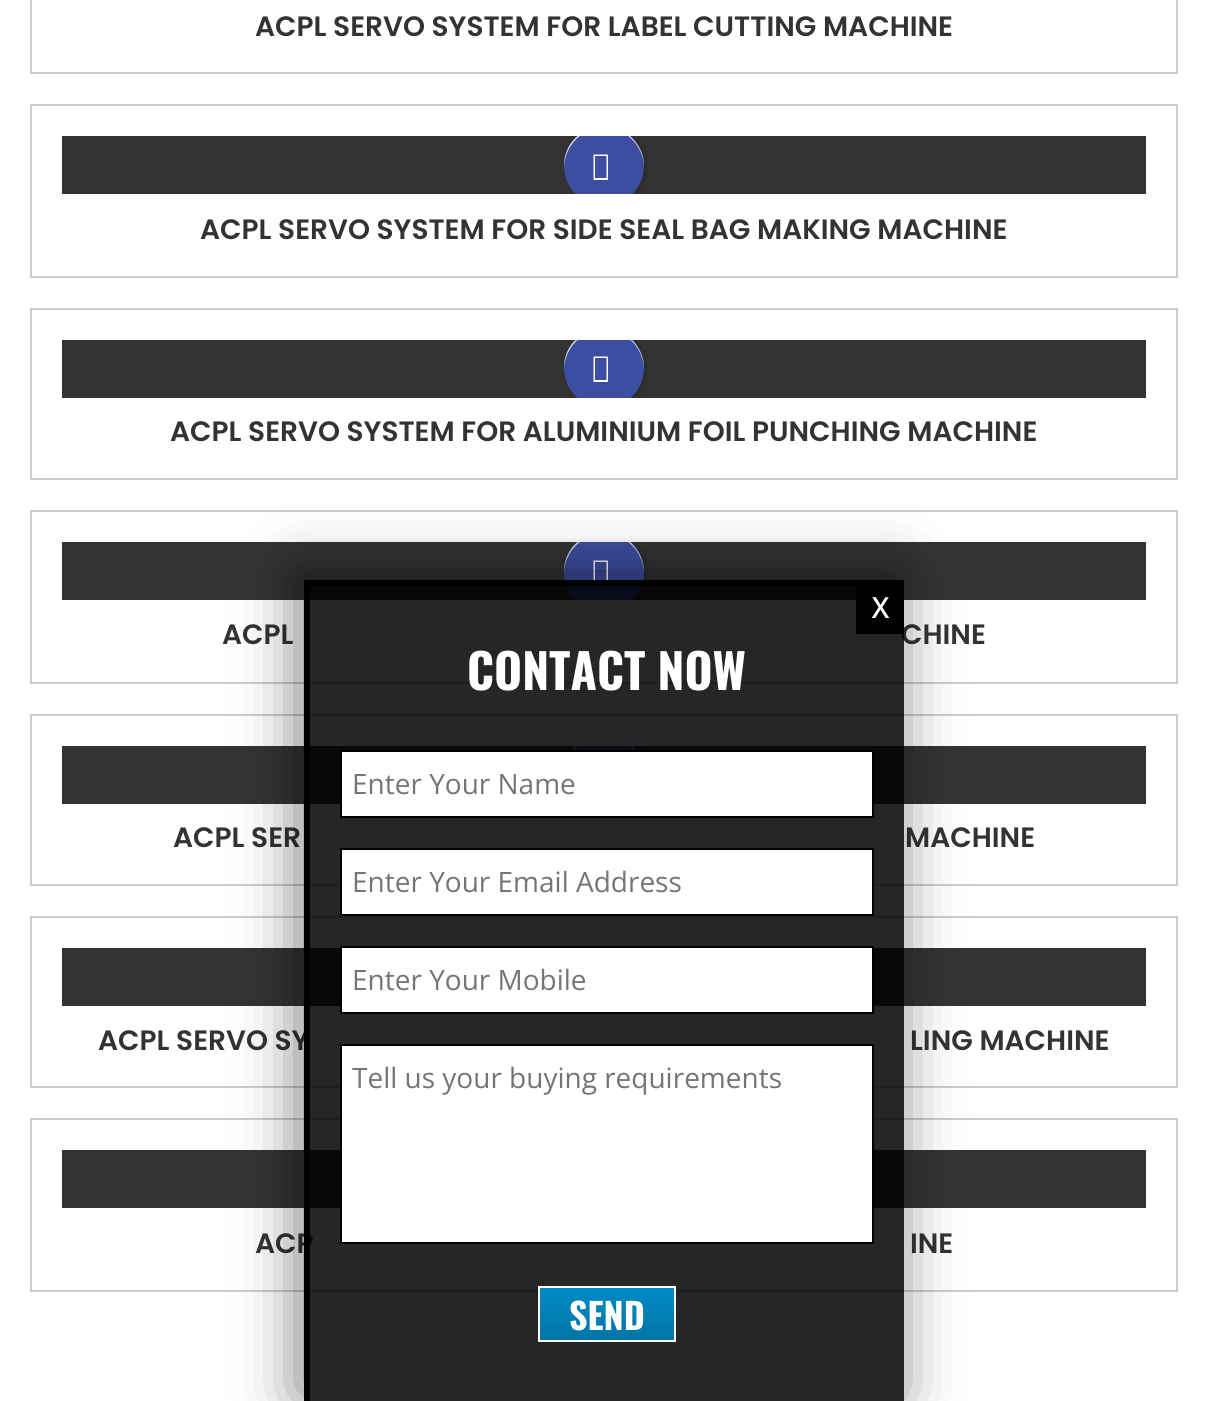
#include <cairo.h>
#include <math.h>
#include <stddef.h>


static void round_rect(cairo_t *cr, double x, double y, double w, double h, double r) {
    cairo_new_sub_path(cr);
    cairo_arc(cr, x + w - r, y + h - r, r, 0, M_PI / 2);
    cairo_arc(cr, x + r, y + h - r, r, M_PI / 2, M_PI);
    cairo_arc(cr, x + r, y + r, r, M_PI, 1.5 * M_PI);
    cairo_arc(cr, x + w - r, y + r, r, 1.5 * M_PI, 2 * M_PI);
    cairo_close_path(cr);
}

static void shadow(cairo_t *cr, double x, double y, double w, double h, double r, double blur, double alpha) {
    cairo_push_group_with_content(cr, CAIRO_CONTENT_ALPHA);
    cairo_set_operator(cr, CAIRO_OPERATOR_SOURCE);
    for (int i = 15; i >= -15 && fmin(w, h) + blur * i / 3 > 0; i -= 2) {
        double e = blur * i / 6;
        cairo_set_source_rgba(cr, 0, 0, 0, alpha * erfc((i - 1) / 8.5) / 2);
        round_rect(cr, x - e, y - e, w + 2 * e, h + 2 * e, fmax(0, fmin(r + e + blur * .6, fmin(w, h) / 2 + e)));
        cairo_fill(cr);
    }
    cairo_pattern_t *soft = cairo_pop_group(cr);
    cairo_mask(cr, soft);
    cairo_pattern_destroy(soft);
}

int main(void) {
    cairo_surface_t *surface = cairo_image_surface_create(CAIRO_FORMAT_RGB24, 1207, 1401);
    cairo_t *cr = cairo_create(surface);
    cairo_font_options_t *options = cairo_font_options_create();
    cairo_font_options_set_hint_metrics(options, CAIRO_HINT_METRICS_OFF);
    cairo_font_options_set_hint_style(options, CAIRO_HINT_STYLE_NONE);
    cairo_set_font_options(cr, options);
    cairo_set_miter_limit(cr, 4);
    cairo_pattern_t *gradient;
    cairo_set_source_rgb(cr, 1, 1, 1);
    cairo_paint(cr);
    cairo_rectangle(cr, 31, -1, 1146, 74);
    cairo_set_source_rgb(cr, 0.8, 0.8, 0.8);
    cairo_stroke(cr);
    cairo_select_font_face(cr, "Poppins SemiBold", CAIRO_FONT_SLANT_NORMAL, CAIRO_FONT_WEIGHT_NORMAL);
    cairo_set_font_size(cr, 28);
    cairo_set_source_rgb(cr, 0.2, 0.2, 0.2);
    cairo_move_to(cr, 255, 36);
    cairo_show_text(cr, "ACPL SERVO SYSTEM FOR LABEL CUTTING MACHINE");
    cairo_rectangle(cr, 31, 105, 1146, 172);
    cairo_set_source_rgb(cr, 0.8, 0.8, 0.8);
    cairo_stroke(cr);
    cairo_set_source_rgb(cr, 0.2, 0.2, 0.2);
    cairo_rectangle(cr, 62, 136, 1084, 58);
    cairo_fill(cr);
    cairo_save(cr);
    cairo_rectangle(cr, 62, 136, 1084, 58);
    cairo_clip(cr);
    cairo_set_source_rgb(cr, 0, 0, 0);
    shadow(cr, 566, 128, 80, 80, 40, 3, 0.2);
    cairo_restore(cr);
    cairo_save(cr);
    cairo_rectangle(cr, 62, 136, 1084, 58);
    cairo_clip(cr);
    cairo_set_source_rgb(cr, 0.239, 0.306, 0.627);
    cairo_arc(cr, 604, 166, 40, 0, 2 * M_PI);
    cairo_fill(cr);
    cairo_set_source_rgba(cr, 1, 1, 1, 0.8);
    cairo_new_path(cr);
    cairo_move_to(cr, 604, 128);
    cairo_curve_to(cr, 626, 128, 643, 145, 644, 167);
    cairo_curve_to(cr, 644, 159, 642, 151, 637, 144);
    cairo_curve_to(cr, 615, 111, 563, 127, 564, 167);
    cairo_curve_to(cr, 565, 145, 582, 128, 604, 128);
    cairo_close_path(cr);
    cairo_fill(cr);
    cairo_restore(cr);
    cairo_set_source_rgb(cr, 1, 1, 1);
    cairo_new_path(cr);
    cairo_move_to(cr, 593.5, 180);
    cairo_line_to(cr, 593.5, 154.5);
    cairo_line_to(cr, 608, 154.5);
    cairo_line_to(cr, 608, 180);
    cairo_close_path(cr);
    cairo_move_to(cr, 595, 178);
    cairo_line_to(cr, 606.5, 178);
    cairo_line_to(cr, 606.5, 156);
    cairo_line_to(cr, 595, 156);
    cairo_close_path(cr);
    cairo_fill(cr);
    cairo_set_source_rgb(cr, 0.2, 0.2, 0.2);
    cairo_move_to(cr, 200, 239);
    cairo_show_text(cr, "ACPL SERVO SYSTEM FOR SIDE SEAL BAG MAKING MACHINE");
    cairo_rectangle(cr, 31, 309, 1146, 170);
    cairo_set_source_rgb(cr, 0.8, 0.8, 0.8);
    cairo_stroke(cr);
    cairo_set_source_rgb(cr, 0.2, 0.2, 0.2);
    cairo_rectangle(cr, 62, 340, 1084, 58);
    cairo_fill(cr);
    cairo_save(cr);
    cairo_rectangle(cr, 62, 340, 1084, 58);
    cairo_clip(cr);
    cairo_set_source_rgb(cr, 0, 0, 0);
    shadow(cr, 566, 330, 80, 80, 40, 3, 0.2);
    cairo_restore(cr);
    cairo_save(cr);
    cairo_rectangle(cr, 62, 340, 1084, 58);
    cairo_clip(cr);
    cairo_set_source_rgb(cr, 0.239, 0.306, 0.627);
    cairo_arc(cr, 604, 368, 40, 0, 2 * M_PI);
    cairo_fill(cr);
    cairo_set_source_rgba(cr, 1, 1, 1, 0.8);
    cairo_new_path(cr);
    cairo_move_to(cr, 604, 330);
    cairo_curve_to(cr, 626, 330, 643, 347, 644, 369);
    cairo_curve_to(cr, 644, 361, 642, 353, 637, 346);
    cairo_curve_to(cr, 615, 313, 563, 329, 564, 369);
    cairo_curve_to(cr, 565, 347, 582, 330, 604, 330);
    cairo_close_path(cr);
    cairo_fill(cr);
    cairo_restore(cr);
    cairo_set_source_rgb(cr, 1, 1, 1);
    cairo_new_path(cr);
    cairo_move_to(cr, 593.5, 382);
    cairo_line_to(cr, 593.5, 356.5);
    cairo_line_to(cr, 608, 356.5);
    cairo_line_to(cr, 608, 382);
    cairo_close_path(cr);
    cairo_move_to(cr, 595, 380);
    cairo_line_to(cr, 606.5, 380);
    cairo_line_to(cr, 606.5, 358);
    cairo_line_to(cr, 595, 358);
    cairo_close_path(cr);
    cairo_fill(cr);
    cairo_set_source_rgb(cr, 0.2, 0.2, 0.2);
    cairo_move_to(cr, 170, 441);
    cairo_show_text(cr, "ACPL SERVO SYSTEM FOR ALUMINIUM FOIL PUNCHING MACHINE");
    cairo_rectangle(cr, 31, 511, 1146, 172);
    cairo_set_source_rgb(cr, 0.8, 0.8, 0.8);
    cairo_stroke(cr);
    cairo_set_source_rgb(cr, 0.2, 0.2, 0.2);
    cairo_rectangle(cr, 62, 542, 1084, 58);
    cairo_fill(cr);
    cairo_save(cr);
    cairo_rectangle(cr, 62, 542, 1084, 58);
    cairo_clip(cr);
    cairo_set_source_rgb(cr, 0, 0, 0);
    shadow(cr, 566, 534, 80, 80, 40, 3, 0.2);
    cairo_restore(cr);
    cairo_save(cr);
    cairo_rectangle(cr, 62, 542, 1084, 58);
    cairo_clip(cr);
    cairo_set_source_rgb(cr, 0.239, 0.306, 0.627);
    cairo_arc(cr, 604, 572, 40, 0, 2 * M_PI);
    cairo_fill(cr);
    cairo_set_source_rgba(cr, 1, 1, 1, 0.8);
    cairo_new_path(cr);
    cairo_move_to(cr, 604, 534);
    cairo_curve_to(cr, 626, 534, 643, 551, 644, 573);
    cairo_curve_to(cr, 644, 565, 642, 557, 637, 550);
    cairo_curve_to(cr, 615, 517, 563, 533, 564, 573);
    cairo_curve_to(cr, 565, 551, 582, 534, 604, 534);
    cairo_close_path(cr);
    cairo_fill(cr);
    cairo_restore(cr);
    cairo_set_source_rgb(cr, 1, 1, 1);
    cairo_new_path(cr);
    cairo_move_to(cr, 593.5, 586);
    cairo_line_to(cr, 593.5, 560.5);
    cairo_line_to(cr, 608, 560.5);
    cairo_line_to(cr, 608, 586);
    cairo_close_path(cr);
    cairo_move_to(cr, 595, 584);
    cairo_line_to(cr, 606.5, 584);
    cairo_line_to(cr, 606.5, 562);
    cairo_line_to(cr, 595, 562);
    cairo_close_path(cr);
    cairo_fill(cr);
    cairo_set_source_rgb(cr, 0.2, 0.2, 0.2);
    cairo_move_to(cr, 222, 644);
    cairo_show_text(cr, "ACPL");
    cairo_move_to(cr, 901, 644);
    cairo_show_text(cr, "CHINE");
    cairo_rectangle(cr, 31, 715, 1146, 170);
    cairo_set_source_rgb(cr, 0.8, 0.8, 0.8);
    cairo_stroke(cr);
    cairo_set_source_rgb(cr, 0.2, 0.2, 0.2);
    cairo_rectangle(cr, 62, 746, 1084, 58);
    cairo_fill(cr);
    cairo_save(cr);
    cairo_rectangle(cr, 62, 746, 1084, 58);
    cairo_clip(cr);
    cairo_set_source_rgb(cr, 0, 0, 0);
    shadow(cr, 566, 736, 80, 80, 40, 3, 0.2);
    cairo_restore(cr);
    cairo_save(cr);
    cairo_rectangle(cr, 62, 746, 1084, 58);
    cairo_clip(cr);
    cairo_set_source_rgb(cr, 0.239, 0.306, 0.627);
    cairo_arc(cr, 604, 774, 40, 0, 2 * M_PI);
    cairo_fill(cr);
    cairo_set_source_rgba(cr, 1, 1, 1, 0.8);
    cairo_new_path(cr);
    cairo_move_to(cr, 604, 736);
    cairo_curve_to(cr, 626, 736, 643, 753, 644, 775);
    cairo_curve_to(cr, 644, 767, 642, 759, 637, 752);
    cairo_curve_to(cr, 615, 719, 563, 735, 564, 775);
    cairo_curve_to(cr, 565, 753, 582, 736, 604, 736);
    cairo_close_path(cr);
    cairo_fill(cr);
    cairo_restore(cr);
    cairo_move_to(cr, 173, 847);
    cairo_show_text(cr, "ACPL SER");
    cairo_move_to(cr, 905, 847);
    cairo_show_text(cr, "MACHINE");
    cairo_rectangle(cr, 31, 917, 1146, 170);
    cairo_set_source_rgb(cr, 0.8, 0.8, 0.8);
    cairo_stroke(cr);
    cairo_set_source_rgb(cr, 0.2, 0.2, 0.2);
    cairo_rectangle(cr, 62, 948, 1084, 58);
    cairo_fill(cr);
    cairo_move_to(cr, 98, 1050);
    cairo_show_text(cr, "ACPL SERVO SY");
    cairo_move_to(cr, 910, 1050);
    cairo_show_text(cr, "LING MACHINE");
    cairo_rectangle(cr, 31, 1119, 1146, 172);
    cairo_set_source_rgb(cr, 0.8, 0.8, 0.8);
    cairo_stroke(cr);
    cairo_set_source_rgb(cr, 0.2, 0.2, 0.2);
    cairo_rectangle(cr, 62, 1150, 1084, 58);
    cairo_fill(cr);
    cairo_move_to(cr, 255, 1253);
    cairo_show_text(cr, "ACP");
    cairo_move_to(cr, 910, 1253);
    cairo_show_text(cr, "INE");
    cairo_save(cr);
    cairo_set_fill_rule(cr, CAIRO_FILL_RULE_EVEN_ODD);
    cairo_new_path(cr);
    cairo_move_to(cr, 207, 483);
    cairo_line_to(cr, 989, 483);
    cairo_line_to(cr, 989, 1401);
    cairo_line_to(cr, 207, 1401);
    cairo_close_path(cr);
    cairo_move_to(cr, 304, 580);
    cairo_line_to(cr, 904, 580);
    cairo_line_to(cr, 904, 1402);
    cairo_line_to(cr, 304, 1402);
    cairo_close_path(cr);
    cairo_clip(cr);
    cairo_set_source_rgb(cr, 0, 0, 0);
    shadow(cr, 298, 574, 600, 822, 0, 30, 0.5);
    cairo_restore(cr);
    cairo_set_source_rgba(cr, 0, 0, 0, 0.85);
    cairo_rectangle(cr, 310, 586, 594, 815);
    cairo_fill(cr);
    cairo_set_source_rgb(cr, 0, 0, 0);
    cairo_rectangle(cr, 304, 580, 600, 6);
    cairo_fill(cr);
    cairo_rectangle(cr, 304, 580, 6, 821);
    cairo_fill(cr);
    cairo_rectangle(cr, 856, 586, 48, 48);
    cairo_fill(cr);
    cairo_select_font_face(cr, "Open Sans", CAIRO_FONT_SLANT_NORMAL, CAIRO_FONT_WEIGHT_BOLD);
    cairo_set_source_rgb(cr, 1, 1, 1);
    cairo_move_to(cr, 872, 618);
    cairo_show_text(cr, "X");
    cairo_select_font_face(cr, "Oswald", CAIRO_FONT_SLANT_NORMAL, CAIRO_FONT_WEIGHT_BOLD);
    cairo_set_font_size(cr, 48);
    cairo_move_to(cr, 467, 690);
    cairo_show_text(cr, "CONTACT NOW");
    cairo_rectangle(cr, 341, 751, 532, 66);
    cairo_fill_preserve(cr);
    cairo_set_source_rgb(cr, 0, 0, 0);
    cairo_stroke(cr);
    cairo_select_font_face(cr, "Open Sans", CAIRO_FONT_SLANT_NORMAL, CAIRO_FONT_WEIGHT_NORMAL);
    cairo_set_font_size(cr, 28);
    cairo_set_source_rgb(cr, 0.459, 0.459, 0.459);
    cairo_move_to(cr, 352, 794);
    cairo_show_text(cr, "Enter Your Name");
    cairo_set_source_rgb(cr, 1, 1, 1);
    cairo_rectangle(cr, 341, 849, 532, 66);
    cairo_fill_preserve(cr);
    cairo_set_source_rgb(cr, 0, 0, 0);
    cairo_stroke(cr);
    cairo_set_source_rgb(cr, 0.459, 0.459, 0.459);
    cairo_move_to(cr, 352, 892);
    cairo_show_text(cr, "Enter Your Email Address");
    cairo_set_source_rgb(cr, 1, 1, 1);
    cairo_rectangle(cr, 341, 947, 532, 66);
    cairo_fill_preserve(cr);
    cairo_set_source_rgb(cr, 0, 0, 0);
    cairo_stroke(cr);
    cairo_set_source_rgb(cr, 0.459, 0.459, 0.459);
    cairo_move_to(cr, 352, 990);
    cairo_show_text(cr, "Enter Your Mobile");
    cairo_set_source_rgb(cr, 1, 1, 1);
    cairo_rectangle(cr, 341, 1045, 532, 198);
    cairo_fill_preserve(cr);
    cairo_set_source_rgb(cr, 0, 0, 0);
    cairo_stroke(cr);
    cairo_set_source_rgb(cr, 0.459, 0.459, 0.459);
    cairo_move_to(cr, 352, 1088);
    cairo_show_text(cr, "Tell us your buying requirements");
    gradient = cairo_pattern_create_linear(607, 1288, 607, 1340);
    cairo_pattern_add_color_stop_rgba(gradient, 0, 0, 0.541, 0.769, 1);
    cairo_pattern_add_color_stop_rgba(gradient, 1, 0, 0.459, 0.651, 1);
    cairo_set_source(cr, gradient);
    cairo_pattern_destroy(gradient);
    cairo_rectangle(cr, 540, 1288, 134, 52);
    cairo_fill(cr);
    cairo_rectangle(cr, 539, 1287, 136, 54);
    cairo_set_source_rgb(cr, 1, 1, 1);
    cairo_stroke(cr);
    cairo_select_font_face(cr, "Oswald", CAIRO_FONT_SLANT_NORMAL, CAIRO_FONT_WEIGHT_BOLD);
    cairo_set_font_size(cr, 36);
    cairo_move_to(cr, 569, 1330);
    cairo_show_text(cr, "SEND");
    cairo_surface_write_to_png(surface, "page.png");
    cairo_font_options_destroy(options);
    cairo_destroy(cr);
    cairo_surface_destroy(surface);
    return 0;
}
